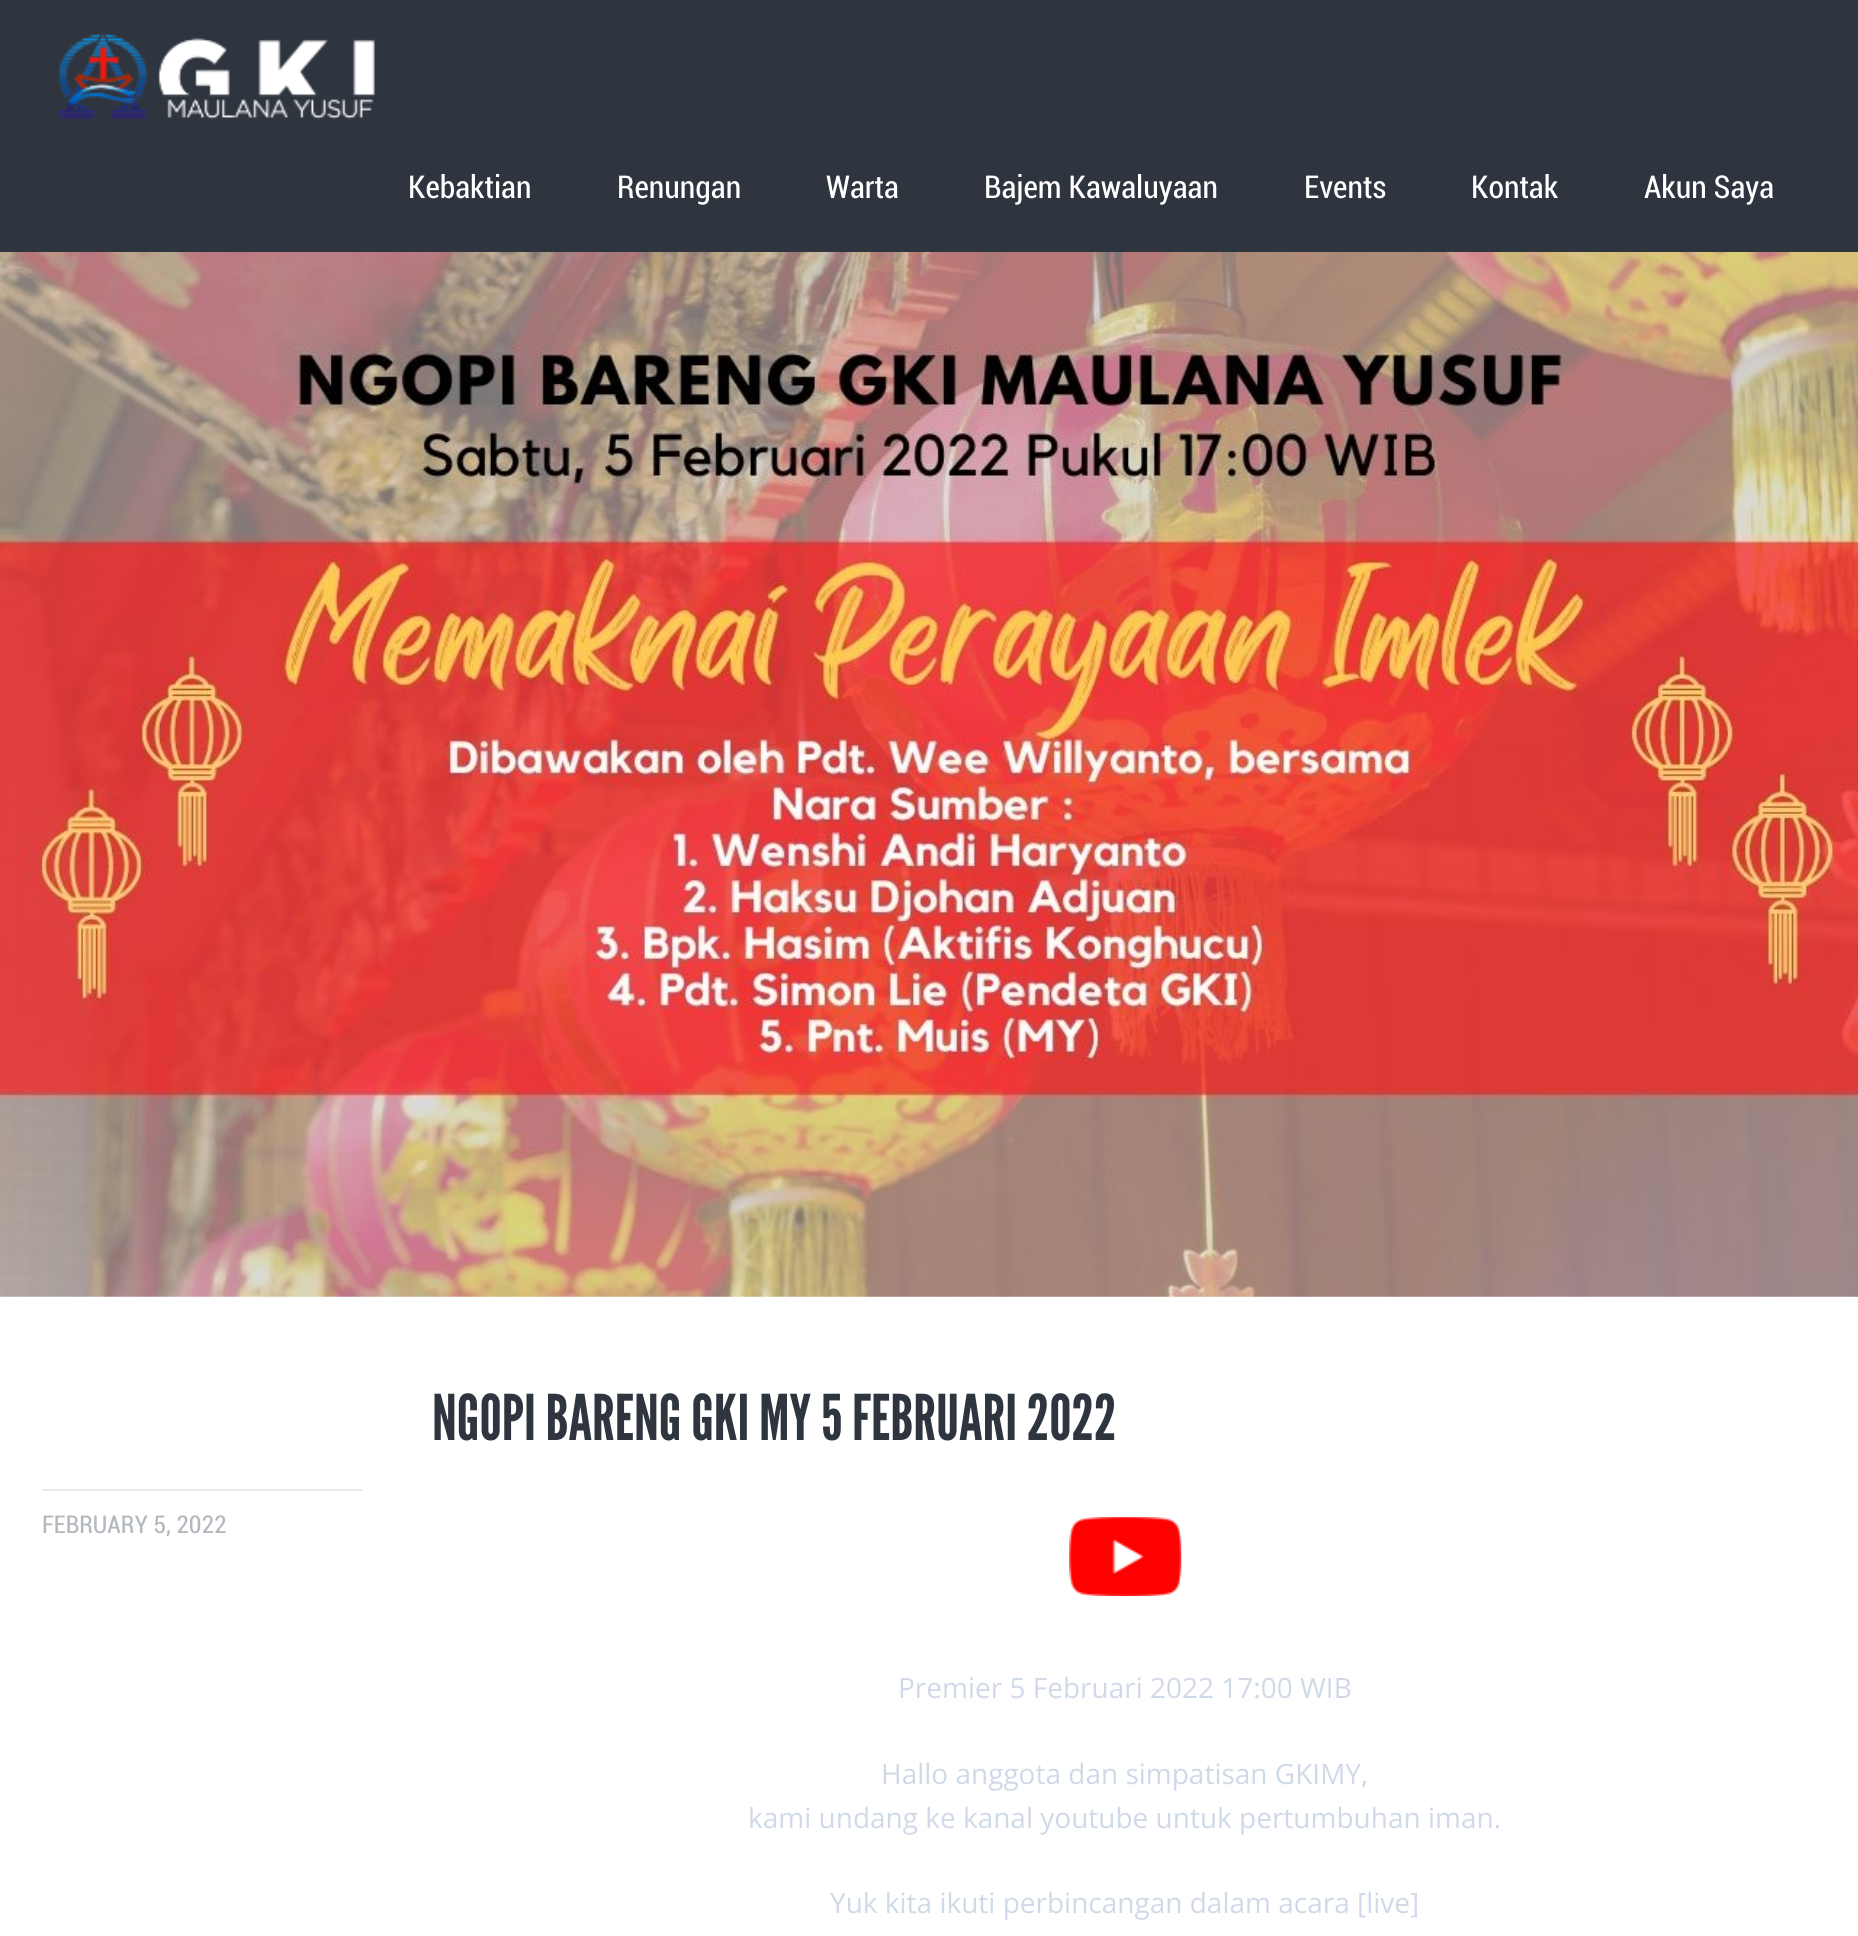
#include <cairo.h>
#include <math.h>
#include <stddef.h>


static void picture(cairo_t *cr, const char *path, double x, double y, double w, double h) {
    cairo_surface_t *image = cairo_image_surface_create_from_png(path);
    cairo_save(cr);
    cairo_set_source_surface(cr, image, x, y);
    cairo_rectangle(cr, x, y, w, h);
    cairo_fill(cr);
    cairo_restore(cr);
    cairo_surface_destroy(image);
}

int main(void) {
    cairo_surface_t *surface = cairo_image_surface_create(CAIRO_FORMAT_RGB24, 1858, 1936);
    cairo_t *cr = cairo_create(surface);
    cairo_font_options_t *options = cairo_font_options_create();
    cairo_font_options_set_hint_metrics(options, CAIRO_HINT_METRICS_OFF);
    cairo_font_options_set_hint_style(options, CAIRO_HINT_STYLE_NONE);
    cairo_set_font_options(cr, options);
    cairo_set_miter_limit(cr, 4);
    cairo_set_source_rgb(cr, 1, 1, 1);
    cairo_paint(cr);
    cairo_set_source_rgb(cr, 0.184, 0.208, 0.247);
    cairo_rectangle(cr, 0, 0, 1858, 252);
    cairo_fill(cr);
    picture(cr, "img1.png", 58, 33, 317, 87);
    cairo_select_font_face(cr, "Roboto", CAIRO_FONT_SLANT_NORMAL, CAIRO_FONT_WEIGHT_NORMAL);
    cairo_set_font_size(cr, 31.5);
    cairo_set_source_rgb(cr, 1, 1, 1);
    cairo_move_to(cr, 408, 198);
    cairo_show_text(cr, "Kebaktian");
    cairo_move_to(cr, 617, 198);
    cairo_show_text(cr, "Renungan");
    cairo_move_to(cr, 826, 198);
    cairo_show_text(cr, "Warta");
    cairo_move_to(cr, 984, 198);
    cairo_show_text(cr, "Bajem Kawaluyaan");
    cairo_move_to(cr, 1304, 198);
    cairo_show_text(cr, "Events");
    cairo_move_to(cr, 1471, 198);
    cairo_show_text(cr, "Kontak");
    cairo_move_to(cr, 1644, 198);
    cairo_show_text(cr, "Akun Saya");
    picture(cr, "img2.png", 0, 252, 1858, 1045);
    cairo_select_font_face(cr, "League Gothic", CAIRO_FONT_SLANT_NORMAL, CAIRO_FONT_WEIGHT_NORMAL);
    cairo_set_font_size(cr, 63);
    cairo_set_source_rgb(cr, 0.184, 0.208, 0.247);
    cairo_move_to(cr, 432, 1440);
    cairo_show_text(cr, "NGOPI BARENG GKI MY 5 FEBRUARI 2022");
    cairo_set_source_rgb(cr, 0.918, 0.918, 0.918);
    cairo_rectangle(cr, 42, 1489, 320, 2);
    cairo_fill(cr);
    cairo_select_font_face(cr, "Roboto", CAIRO_FONT_SLANT_NORMAL, CAIRO_FONT_WEIGHT_NORMAL);
    cairo_set_font_size(cr, 24.5);
    cairo_set_source_rgb(cr, 0.698, 0.722, 0.741);
    cairo_move_to(cr, 42, 1533);
    cairo_show_text(cr, "FEBRUARY 5, 2022");
    picture(cr, "img3.png", 1069, 1517, 113, 79);
    cairo_select_font_face(cr, "Open Sans", CAIRO_FONT_SLANT_NORMAL, CAIRO_FONT_WEIGHT_NORMAL);
    cairo_set_font_size(cr, 28);
    cairo_set_source_rgb(cr, 0.812, 0.851, 0.91);
    cairo_move_to(cr, 898, 1698);
    cairo_show_text(cr, "Premier 5 Februari 2022 17:00 WIB");
    cairo_move_to(cr, 881, 1784);
    cairo_show_text(cr, "Hallo anggota dan simpatisan GKIMY,");
    cairo_move_to(cr, 748, 1828);
    cairo_show_text(cr, "kami undang ke kanal youtube untuk pertumbuhan iman.");
    cairo_move_to(cr, 830, 1913);
    cairo_show_text(cr, "Yuk kita ikuti perbincangan dalam acara [live]");
    cairo_surface_write_to_png(surface, "page.png");
    cairo_font_options_destroy(options);
    cairo_destroy(cr);
    cairo_surface_destroy(surface);
    return 0;
}
